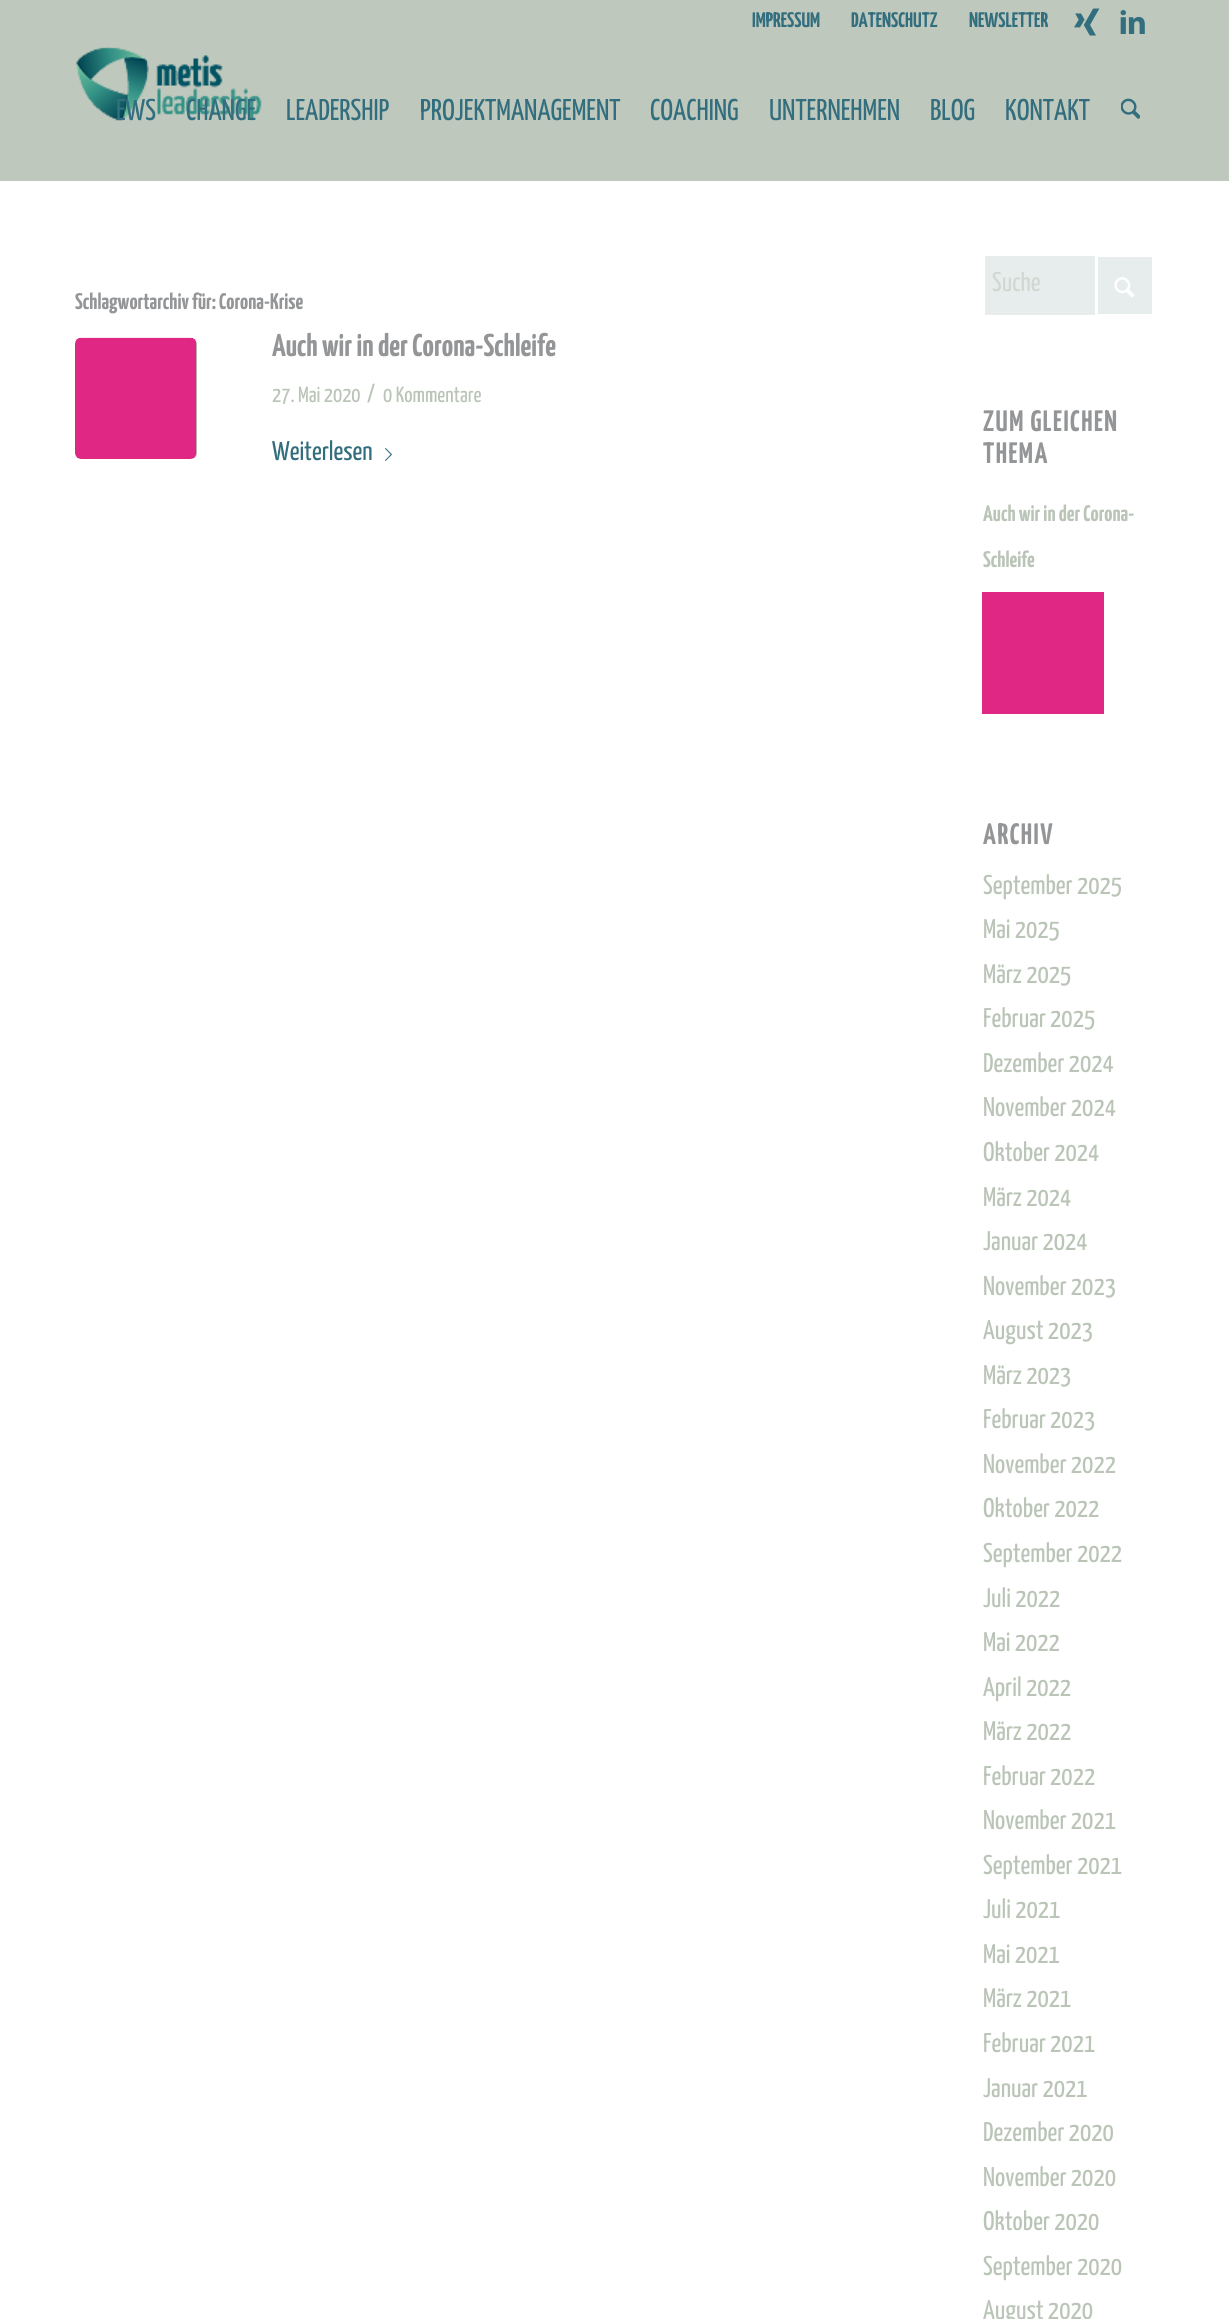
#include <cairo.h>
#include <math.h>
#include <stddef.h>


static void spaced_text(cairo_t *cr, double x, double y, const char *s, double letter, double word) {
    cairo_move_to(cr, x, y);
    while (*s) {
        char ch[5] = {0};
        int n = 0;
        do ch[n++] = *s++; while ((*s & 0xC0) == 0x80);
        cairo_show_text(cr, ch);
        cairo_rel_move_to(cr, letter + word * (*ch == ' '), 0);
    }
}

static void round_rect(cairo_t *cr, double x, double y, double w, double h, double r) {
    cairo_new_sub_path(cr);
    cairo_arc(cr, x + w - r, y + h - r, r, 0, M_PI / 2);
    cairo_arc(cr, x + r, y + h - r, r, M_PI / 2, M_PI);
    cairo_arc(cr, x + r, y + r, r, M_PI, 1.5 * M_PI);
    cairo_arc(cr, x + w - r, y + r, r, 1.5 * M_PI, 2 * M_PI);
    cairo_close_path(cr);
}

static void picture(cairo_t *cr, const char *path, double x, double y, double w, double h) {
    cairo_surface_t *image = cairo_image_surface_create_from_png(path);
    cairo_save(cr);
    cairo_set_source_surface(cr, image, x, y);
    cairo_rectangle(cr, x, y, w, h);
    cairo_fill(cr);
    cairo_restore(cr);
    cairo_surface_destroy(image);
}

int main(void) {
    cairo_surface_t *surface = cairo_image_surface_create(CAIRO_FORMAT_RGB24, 1229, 2319);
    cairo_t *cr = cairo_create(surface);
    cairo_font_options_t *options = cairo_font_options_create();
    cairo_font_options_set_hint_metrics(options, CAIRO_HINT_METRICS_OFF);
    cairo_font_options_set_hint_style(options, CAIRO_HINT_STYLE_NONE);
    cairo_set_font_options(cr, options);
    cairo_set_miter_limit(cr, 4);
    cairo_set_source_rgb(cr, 1, 1, 1);
    cairo_paint(cr);
    cairo_set_source_rgb(cr, 0.749, 0.784, 0.737);
    cairo_rectangle(cr, 0, 0, 1229, 181);
    cairo_fill(cr);
    cairo_select_font_face(cr, "Yanone Kaffeesatz ExtraLight", CAIRO_FONT_SLANT_NORMAL, CAIRO_FONT_WEIGHT_NORMAL);
    cairo_set_font_size(cr, 21);
    cairo_set_source_rgb(cr, 0.196, 0.431, 0.494);
    cairo_move_to(cr, 752, 27);
    cairo_show_text(cr, "IMPRESSUM");
    cairo_move_to(cr, 851, 27);
    cairo_show_text(cr, "DATENSCHUTZ");
    cairo_move_to(cr, 969, 27);
    cairo_show_text(cr, "NEWSLETTER");
    picture(cr, "img1.png", 1074, 8, 26, 28);
    picture(cr, "img2.png", 1120, 10, 25, 24);
    picture(cr, "img3.png", 76, 47, 186, 74);
    cairo_select_font_face(cr, "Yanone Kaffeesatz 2 ExtraLight", CAIRO_FONT_SLANT_NORMAL, CAIRO_FONT_WEIGHT_NORMAL);
    cairo_set_font_size(cr, 30);
    cairo_move_to(cr, 116, 120);
    cairo_show_text(cr, "EWS");
    cairo_move_to(cr, 186, 120);
    cairo_show_text(cr, "CHANGE");
    cairo_move_to(cr, 286, 120);
    cairo_show_text(cr, "LEADERSHIP");
    cairo_move_to(cr, 420, 120);
    cairo_show_text(cr, "PROJEKTMANAGEMENT");
    cairo_move_to(cr, 650, 120);
    cairo_show_text(cr, "COACHING");
    cairo_move_to(cr, 769, 120);
    cairo_show_text(cr, "UNTERNEHMEN");
    cairo_move_to(cr, 930, 120);
    cairo_show_text(cr, "BLOG");
    cairo_move_to(cr, 1005, 120);
    cairo_show_text(cr, "KONTAKT");
    picture(cr, "img4.png", 1121, 98, 19, 21);
    cairo_select_font_face(cr, "Yanone Kaffeesatz ExtraLight", CAIRO_FONT_SLANT_NORMAL, CAIRO_FONT_WEIGHT_NORMAL);
    cairo_set_font_size(cr, 22.5);
    cairo_set_source_rgb(cr, 0.576, 0.584, 0.592);
    cairo_move_to(cr, 75, 309);
    cairo_show_text(cr, "Schlagwortarchiv für: Corona-Krise");
    cairo_set_source_rgb(cr, 0.729, 0.769, 0.718);
    round_rect(cr, 75, 338, 122, 121, 6);
    cairo_fill(cr);
    picture(cr, "img5.png", 75, 337, 122, 122);
    cairo_set_font_size(cr, 31.5);
    cairo_set_source_rgb(cr, 0.576, 0.584, 0.592);
    cairo_move_to(cr, 272, 356);
    cairo_show_text(cr, "Auch wir in der Corona-Schleife");
    cairo_select_font_face(cr, "Yanone Kaffeesatz 2 ExtraLight", CAIRO_FONT_SLANT_NORMAL, CAIRO_FONT_WEIGHT_NORMAL);
    cairo_set_font_size(cr, 22);
    cairo_set_source_rgb(cr, 0.729, 0.769, 0.718);
    cairo_move_to(cr, 272, 402);
    cairo_show_text(cr, "27. Mai 2020");
    cairo_set_font_size(cr, 24);
    cairo_move_to(cr, 367, 402);
    cairo_show_text(cr, "/");
    cairo_set_font_size(cr, 22);
    cairo_move_to(cr, 383, 402);
    cairo_show_text(cr, "0 Kommentare");
    cairo_set_font_size(cr, 27);
    cairo_set_source_rgb(cr, 0.196, 0.431, 0.494);
    cairo_move_to(cr, 272, 460);
    cairo_show_text(cr, "Weiterlesen");
    picture(cr, "img6.png", 385, 448, 7, 13);
    cairo_set_source_rgb(cr, 0.906, 0.922, 0.925);
    cairo_rectangle(cr, 985, 256, 167, 59);
    cairo_fill(cr);
    cairo_save(cr);
    cairo_rectangle(cr, 992, 272, 67, 27);
    cairo_clip(cr);
    cairo_set_source_rgb(cr, 0.82, 0.847, 0.824);
    cairo_move_to(cr, 992, 291);
    cairo_show_text(cr, "Suche");
    cairo_restore(cr);
    cairo_rectangle(cr, 1096.5, 255.5, 57, 60);
    cairo_set_source_rgb(cr, 1, 1, 1);
    cairo_set_line_width(cr, 3);
    cairo_stroke(cr);
    picture(cr, "img7.png", 1114, 277, 21, 21);
    cairo_select_font_face(cr, "Yanone Kaffeesatz ExtraLight", CAIRO_FONT_SLANT_NORMAL, CAIRO_FONT_WEIGHT_NORMAL);
    cairo_set_font_size(cr, 29.5);
    cairo_set_source_rgb(cr, 0.576, 0.584, 0.592);
    spaced_text(cr, 983, 431, "ZUM GLEICHEN", 1.5, 0);
    spaced_text(cr, 983, 463, "THEMA", 1.5, 0);
    cairo_set_font_size(cr, 22.5);
    cairo_set_source_rgb(cr, 0.729, 0.769, 0.718);
    cairo_move_to(cr, 983, 521);
    cairo_show_text(cr, "Auch wir in der Corona-");
    cairo_move_to(cr, 983, 567);
    cairo_show_text(cr, "Schleife");
    cairo_set_source_rgb(cr, 0.875, 0.153, 0.514);
    cairo_rectangle(cr, 982, 592, 122, 122);
    cairo_fill(cr);
    cairo_set_font_size(cr, 29.5);
    cairo_set_source_rgb(cr, 0.576, 0.584, 0.592);
    spaced_text(cr, 983, 844, "ARCHIV", 1.5, 0);
    cairo_select_font_face(cr, "Yanone Kaffeesatz 2 ExtraLight", CAIRO_FONT_SLANT_NORMAL, CAIRO_FONT_WEIGHT_NORMAL);
    cairo_set_font_size(cr, 27);
    cairo_set_source_rgb(cr, 0.729, 0.769, 0.718);
    cairo_move_to(cr, 983, 894);
    cairo_show_text(cr, "September 2025");
    cairo_move_to(cr, 983, 938);
    cairo_show_text(cr, "Mai 2025");
    cairo_move_to(cr, 983, 983);
    cairo_show_text(cr, "März 2025");
    cairo_move_to(cr, 983, 1027);
    cairo_show_text(cr, "Februar 2025");
    cairo_move_to(cr, 983, 1072);
    cairo_show_text(cr, "Dezember 2024");
    cairo_move_to(cr, 983, 1116);
    cairo_show_text(cr, "November 2024");
    cairo_move_to(cr, 983, 1161);
    cairo_show_text(cr, "Oktober 2024");
    cairo_move_to(cr, 983, 1206);
    cairo_show_text(cr, "März 2024");
    cairo_move_to(cr, 983, 1250);
    cairo_show_text(cr, "Januar 2024");
    cairo_move_to(cr, 983, 1295);
    cairo_show_text(cr, "November 2023");
    cairo_move_to(cr, 983, 1339);
    cairo_show_text(cr, "August 2023");
    cairo_move_to(cr, 983, 1384);
    cairo_show_text(cr, "März 2023");
    cairo_move_to(cr, 983, 1428);
    cairo_show_text(cr, "Februar 2023");
    cairo_move_to(cr, 983, 1473);
    cairo_show_text(cr, "November 2022");
    cairo_move_to(cr, 983, 1517);
    cairo_show_text(cr, "Oktober 2022");
    cairo_move_to(cr, 983, 1562);
    cairo_show_text(cr, "September 2022");
    cairo_move_to(cr, 983, 1607);
    cairo_show_text(cr, "Juli 2022");
    cairo_move_to(cr, 983, 1651);
    cairo_show_text(cr, "Mai 2022");
    cairo_move_to(cr, 983, 1696);
    cairo_show_text(cr, "April 2022");
    cairo_move_to(cr, 983, 1740);
    cairo_show_text(cr, "März 2022");
    cairo_move_to(cr, 983, 1785);
    cairo_show_text(cr, "Februar 2022");
    cairo_move_to(cr, 983, 1829);
    cairo_show_text(cr, "November 2021");
    cairo_move_to(cr, 983, 1874);
    cairo_show_text(cr, "September 2021");
    cairo_move_to(cr, 983, 1918);
    cairo_show_text(cr, "Juli 2021");
    cairo_move_to(cr, 983, 1963);
    cairo_show_text(cr, "Mai 2021");
    cairo_move_to(cr, 983, 2007);
    cairo_show_text(cr, "März 2021");
    cairo_move_to(cr, 983, 2052);
    cairo_show_text(cr, "Februar 2021");
    cairo_move_to(cr, 983, 2097);
    cairo_show_text(cr, "Januar 2021");
    cairo_move_to(cr, 983, 2141);
    cairo_show_text(cr, "Dezember 2020");
    cairo_move_to(cr, 983, 2186);
    cairo_show_text(cr, "November 2020");
    cairo_move_to(cr, 983, 2230);
    cairo_show_text(cr, "Oktober 2020");
    cairo_move_to(cr, 983, 2275);
    cairo_show_text(cr, "September 2020");
    cairo_move_to(cr, 983, 2319);
    cairo_show_text(cr, "August 2020");
    cairo_surface_write_to_png(surface, "page.png");
    cairo_font_options_destroy(options);
    cairo_destroy(cr);
    cairo_surface_destroy(surface);
    return 0;
}
